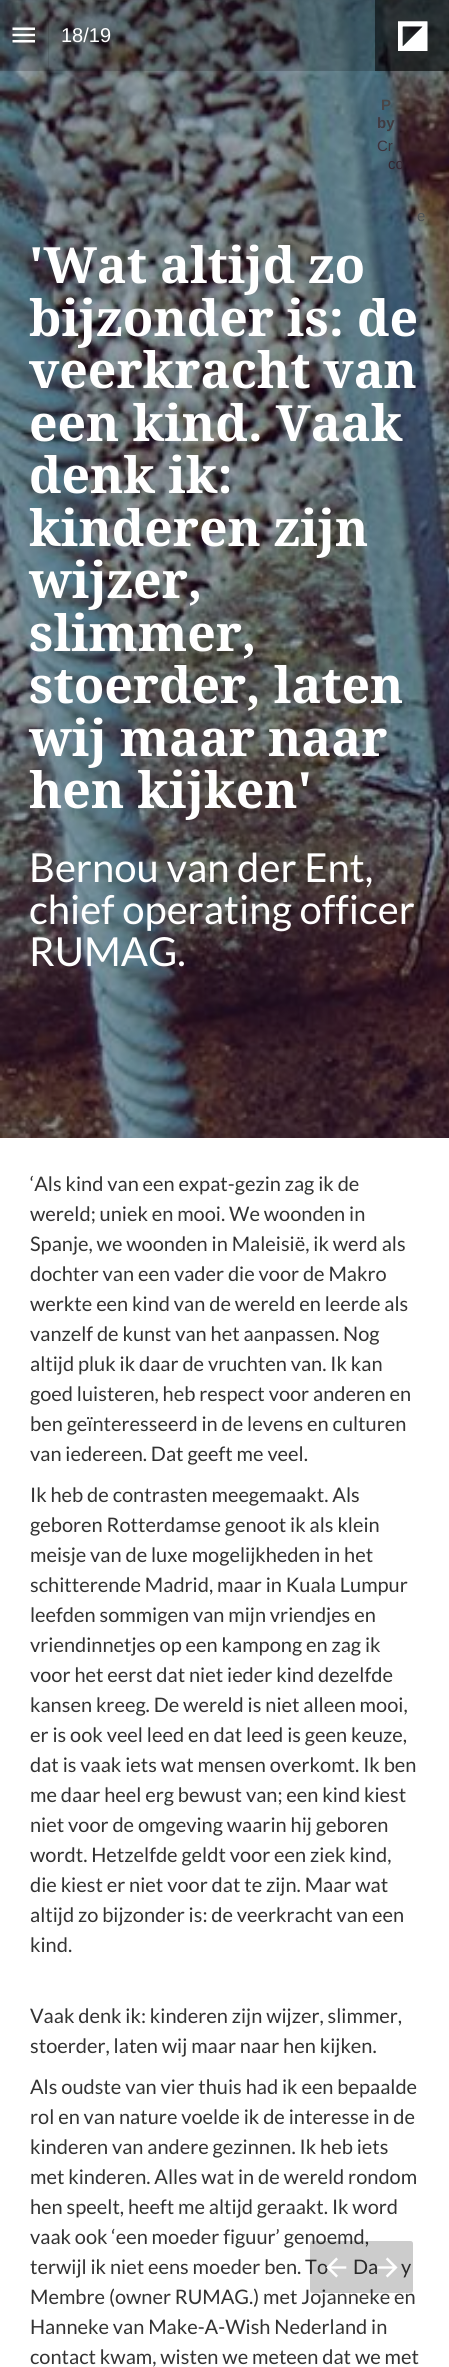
#include <cairo.h>
#include <math.h>
#include <stddef.h>


static void picture(cairo_t *cr, const char *path, double x, double y, double w, double h) {
    cairo_surface_t *image = cairo_image_surface_create_from_png(path);
    cairo_save(cr);
    cairo_set_source_surface(cr, image, x, y);
    cairo_rectangle(cr, x, y, w, h);
    cairo_fill(cr);
    cairo_restore(cr);
    cairo_surface_destroy(image);
}

int main(void) {
    cairo_surface_t *surface = cairo_image_surface_create(CAIRO_FORMAT_RGB24, 449, 2367);
    cairo_t *cr = cairo_create(surface);
    cairo_font_options_t *options = cairo_font_options_create();
    cairo_font_options_set_hint_metrics(options, CAIRO_HINT_METRICS_OFF);
    cairo_font_options_set_hint_style(options, CAIRO_HINT_STYLE_NONE);
    cairo_set_font_options(cr, options);
    cairo_set_miter_limit(cr, 4);
    cairo_set_source_rgb(cr, 1, 1, 1);
    cairo_paint(cr);
    picture(cr, "img3.png", 0, 0, 449, 1138);
    cairo_set_source_rgba(cr, 0, 0, 0, 0.2);
    cairo_rectangle(cr, 0, 0, 449, 71);
    cairo_fill(cr);
    picture(cr, "img1.png", 12, 27, 23, 16);
    cairo_set_source_rgba(cr, 0, 0, 0, 0.1);
    cairo_rectangle(cr, 48, 0, 1, 71);
    cairo_fill(cr);
    cairo_select_font_face(cr, "Liberation Sans", CAIRO_FONT_SLANT_NORMAL, CAIRO_FONT_WEIGHT_NORMAL);
    cairo_set_font_size(cr, 20);
    cairo_set_source_rgb(cr, 1, 1, 1);
    cairo_move_to(cr, 61, 42);
    cairo_show_text(cr, "18/19");
    cairo_set_source_rgba(cr, 0, 0, 0, 0.54);
    cairo_rectangle(cr, 375, 0, 74, 71);
    cairo_fill(cr);
    picture(cr, "img2.png", 398, 21, 30, 30);
    cairo_select_font_face(cr, "Liberation Sans", CAIRO_FONT_SLANT_NORMAL, CAIRO_FONT_WEIGHT_BOLD);
    cairo_set_font_size(cr, 15);
    cairo_set_source_rgb(cr, 0.29, 0.275, 0.278);
    cairo_move_to(cr, 381, 110);
    cairo_show_text(cr, "P");
    cairo_set_source_rgb(cr, 0.251, 0.231, 0.255);
    cairo_move_to(cr, 377, 128);
    cairo_show_text(cr, "by");
    cairo_select_font_face(cr, "Liberation Sans", CAIRO_FONT_SLANT_NORMAL, CAIRO_FONT_WEIGHT_NORMAL);
    cairo_set_source_rgb(cr, 0.235, 0.196, 0.227);
    cairo_move_to(cr, 377, 151);
    cairo_show_text(cr, "Cr");
    cairo_set_source_rgb(cr, 0.204, 0.145, 0.188);
    cairo_move_to(cr, 388, 169);
    cairo_show_text(cr, "co");
    cairo_set_source_rgb(cr, 0.306, 0.322, 0.333);
    cairo_move_to(cr, 417, 221);
    cairo_show_text(cr, "e");
    cairo_select_font_face(cr, "Droid Serif", CAIRO_FONT_SLANT_NORMAL, CAIRO_FONT_WEIGHT_BOLD);
    cairo_set_font_size(cr, 50);
    cairo_set_source_rgb(cr, 1, 1, 1);
    cairo_move_to(cr, 29, 283);
    cairo_show_text(cr, "'Wat altijd zo");
    cairo_move_to(cr, 29, 336);
    cairo_show_text(cr, "bijzonder is: de");
    cairo_move_to(cr, 29, 388);
    cairo_show_text(cr, "veerkracht van");
    cairo_move_to(cr, 29, 441);
    cairo_show_text(cr, "een kind. Vaak");
    cairo_move_to(cr, 29, 493);
    cairo_show_text(cr, "denk ik:");
    cairo_move_to(cr, 29, 546);
    cairo_show_text(cr, "kinderen zijn");
    cairo_move_to(cr, 29, 598);
    cairo_show_text(cr, "wijzer,");
    cairo_move_to(cr, 29, 651);
    cairo_show_text(cr, "slimmer,");
    cairo_move_to(cr, 29, 703);
    cairo_show_text(cr, "stoerder, laten");
    cairo_move_to(cr, 29, 756);
    cairo_show_text(cr, "wij maar naar");
    cairo_move_to(cr, 29, 808);
    cairo_show_text(cr, "hen kijken'");
    cairo_select_font_face(cr, "Lato", CAIRO_FONT_SLANT_NORMAL, CAIRO_FONT_WEIGHT_NORMAL);
    cairo_set_font_size(cr, 40);
    cairo_move_to(cr, 29, 882);
    cairo_show_text(cr, "Bernou van der Ent,");
    cairo_move_to(cr, 29, 924);
    cairo_show_text(cr, "chief operating officer");
    cairo_move_to(cr, 29, 966);
    cairo_show_text(cr, "RUMAG.");
    cairo_set_font_size(cr, 20);
    cairo_set_source_rgb(cr, 0.2, 0.2, 0.2);
    cairo_move_to(cr, 30, 1191);
    cairo_show_text(cr, "‘Als kind van een expat-gezin zag ik de");
    cairo_move_to(cr, 30, 1221);
    cairo_show_text(cr, "wereld; uniek en mooi. We woonden in");
    cairo_move_to(cr, 30, 1251);
    cairo_show_text(cr, "Spanje, we woonden in Maleisië, ik werd als");
    cairo_move_to(cr, 30, 1281);
    cairo_show_text(cr, "dochter van een vader die voor de Makro");
    cairo_move_to(cr, 30, 1311);
    cairo_show_text(cr, "werkte een kind van de wereld en leerde als");
    cairo_move_to(cr, 30, 1341);
    cairo_show_text(cr, "vanzelf de kunst van het aanpassen. Nog");
    cairo_move_to(cr, 30, 1371);
    cairo_show_text(cr, "altijd pluk ik daar de vruchten van. Ik kan");
    cairo_move_to(cr, 30, 1401);
    cairo_show_text(cr, "goed luisteren, heb respect voor anderen en");
    cairo_move_to(cr, 30, 1431);
    cairo_show_text(cr, "ben geïnteresseerd in de levens en culturen");
    cairo_move_to(cr, 30, 1461);
    cairo_show_text(cr, "van iedereen. Dat geeft me veel.");
    cairo_move_to(cr, 30, 1502);
    cairo_show_text(cr, "Ik heb de contrasten meegemaakt. Als");
    cairo_move_to(cr, 30, 1532);
    cairo_show_text(cr, "geboren Rotterdamse genoot ik als klein");
    cairo_move_to(cr, 30, 1562);
    cairo_show_text(cr, "meisje van de luxe mogelijkheden in het");
    cairo_move_to(cr, 30, 1592);
    cairo_show_text(cr, "schitterende Madrid, maar in Kuala Lumpur");
    cairo_move_to(cr, 30, 1622);
    cairo_show_text(cr, "leefden sommigen van mijn vriendjes en");
    cairo_move_to(cr, 30, 1652);
    cairo_show_text(cr, "vriendinnetjes op een kampong en zag ik");
    cairo_move_to(cr, 30, 1682);
    cairo_show_text(cr, "voor het eerst dat niet ieder kind dezelfde");
    cairo_move_to(cr, 30, 1712);
    cairo_show_text(cr, "kansen kreeg. De wereld is niet alleen mooi,");
    cairo_move_to(cr, 30, 1742);
    cairo_show_text(cr, "er is ook veel leed en dat leed is geen keuze,");
    cairo_move_to(cr, 30, 1772);
    cairo_show_text(cr, "dat is vaak iets wat mensen overkomt. Ik ben");
    cairo_move_to(cr, 30, 1802);
    cairo_show_text(cr, "me daar heel erg bewust van; een kind kiest");
    cairo_move_to(cr, 30, 1832);
    cairo_show_text(cr, "niet voor de omgeving waarin hij geboren");
    cairo_move_to(cr, 30, 1862);
    cairo_show_text(cr, "wordt. Hetzelfde geldt voor een ziek kind,");
    cairo_move_to(cr, 30, 1892);
    cairo_show_text(cr, "die kiest er niet voor dat te zijn. Maar wat");
    cairo_move_to(cr, 30, 1922);
    cairo_show_text(cr, "altijd zo bijzonder is: de veerkracht van een");
    cairo_move_to(cr, 30, 1952);
    cairo_show_text(cr, "kind.");
    cairo_move_to(cr, 30, 2023);
    cairo_show_text(cr, "Vaak denk ik: kinderen zijn wijzer, slimmer,");
    cairo_move_to(cr, 30, 2053);
    cairo_show_text(cr, "stoerder, laten wij maar naar hen kijken.");
    cairo_move_to(cr, 30, 2094);
    cairo_show_text(cr, "Als oudste van vier thuis had ik een bepaalde");
    cairo_move_to(cr, 30, 2124);
    cairo_show_text(cr, "rol en van nature voelde ik de interesse in de");
    cairo_move_to(cr, 30, 2154);
    cairo_show_text(cr, "kinderen van andere gezinnen. Ik heb iets");
    cairo_move_to(cr, 30, 2184);
    cairo_show_text(cr, "met kinderen. Alles wat in de wereld rondom");
    cairo_move_to(cr, 30, 2214);
    cairo_show_text(cr, "hen speelt, heeft me altijd geraakt. Ik word");
    cairo_move_to(cr, 30, 2244);
    cairo_show_text(cr, "vaak ook ‘een moeder figuur’ genoemd,");
    cairo_move_to(cr, 30, 2274);
    cairo_show_text(cr, "terwijl ik niet eens moeder ben. To");
    cairo_move_to(cr, 353, 2274);
    cairo_show_text(cr, "Da");
    cairo_move_to(cr, 401, 2274);
    cairo_show_text(cr, "y");
    cairo_move_to(cr, 30, 2304);
    cairo_show_text(cr, "Membre (owner RUMAG.) met Jojanneke en");
    cairo_move_to(cr, 30, 2334);
    cairo_show_text(cr, "Hanneke van Make-A-Wish Nederland in");
    cairo_move_to(cr, 30, 2364);
    cairo_show_text(cr, "contact kwam, wisten we meteen dat we met");
    cairo_set_source_rgba(cr, 0, 0, 0, 0.2);
    cairo_new_path(cr);
    cairo_move_to(cr, 312.5, 2241);
    cairo_line_to(cr, 361, 2241);
    cairo_line_to(cr, 361, 2293);
    cairo_line_to(cr, 312.5, 2293);
    cairo_curve_to(cr, 311, 2293, 310, 2292, 310, 2290.5);
    cairo_line_to(cr, 310, 2243.5);
    cairo_curve_to(cr, 310, 2242, 311, 2241, 312.5, 2241);
    cairo_close_path(cr);
    cairo_fill(cr);
    picture(cr, "img4.png", 326, 2257, 21, 21);
    cairo_new_path(cr);
    cairo_move_to(cr, 361, 2241);
    cairo_line_to(cr, 410.5, 2241);
    cairo_curve_to(cr, 412, 2241, 413, 2242, 413, 2243.5);
    cairo_line_to(cr, 413, 2290.5);
    cairo_curve_to(cr, 413, 2292, 412, 2293, 410.5, 2293);
    cairo_line_to(cr, 361, 2293);
    cairo_close_path(cr);
    cairo_fill(cr);
    picture(cr, "img5.png", 377, 2257, 21, 21);
    cairo_surface_write_to_png(surface, "page.png");
    cairo_font_options_destroy(options);
    cairo_destroy(cr);
    cairo_surface_destroy(surface);
    return 0;
}
